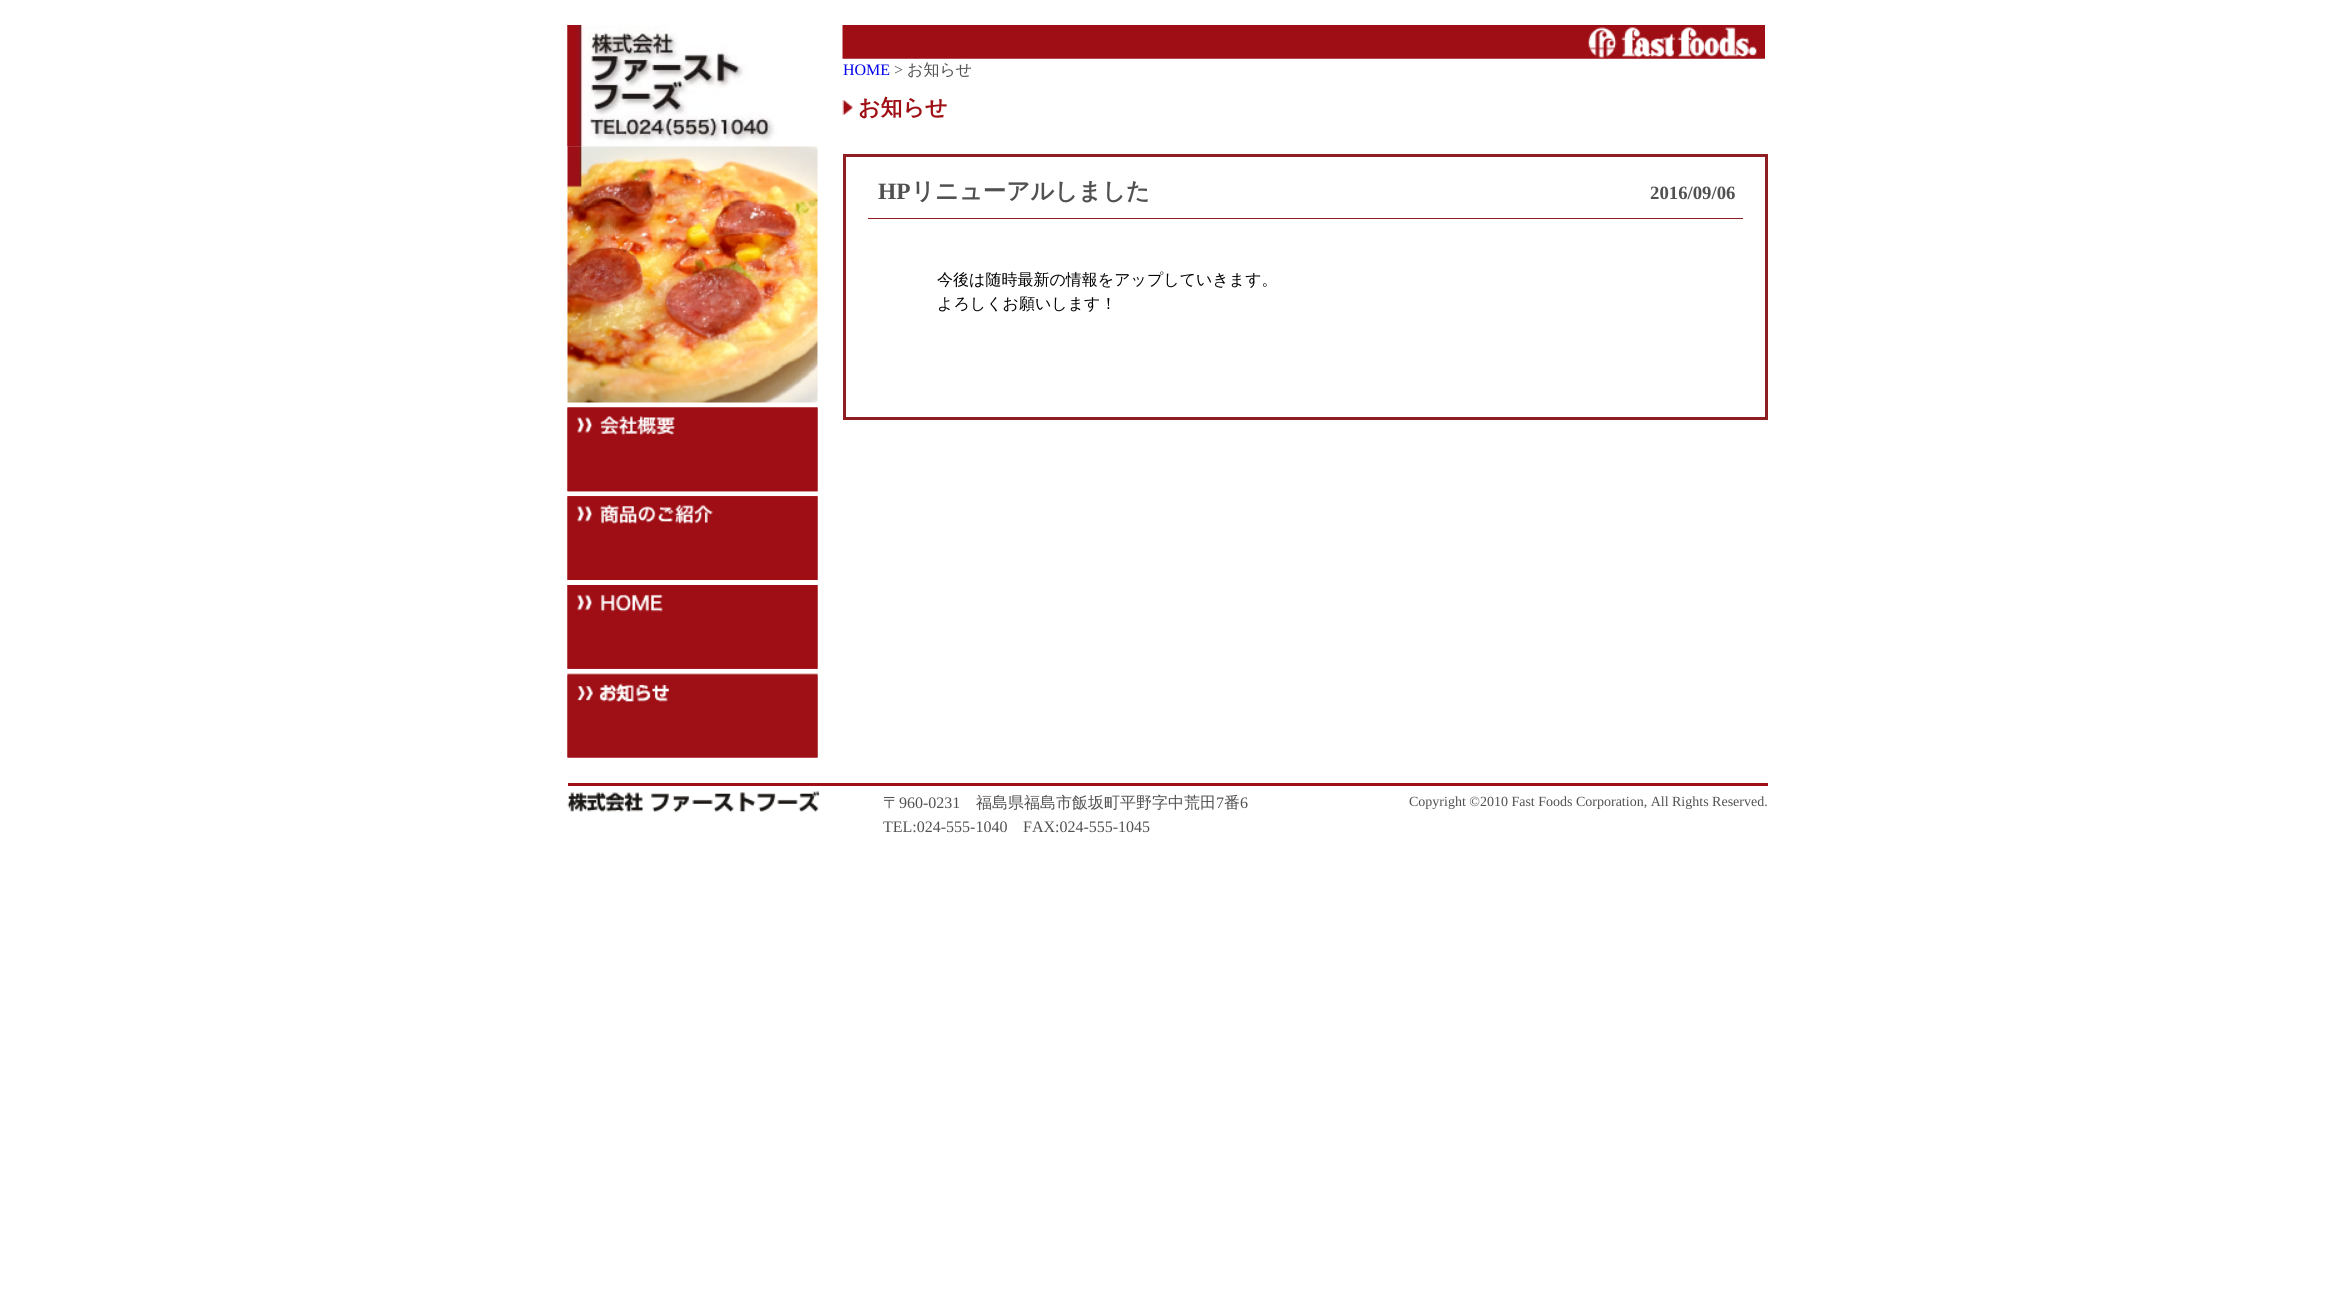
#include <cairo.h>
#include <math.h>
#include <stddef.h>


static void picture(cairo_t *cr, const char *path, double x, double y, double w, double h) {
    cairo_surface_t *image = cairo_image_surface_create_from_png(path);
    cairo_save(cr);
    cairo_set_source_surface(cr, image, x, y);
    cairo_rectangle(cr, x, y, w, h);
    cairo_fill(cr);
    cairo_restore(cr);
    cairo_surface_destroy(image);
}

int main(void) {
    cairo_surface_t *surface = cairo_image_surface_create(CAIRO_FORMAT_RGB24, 2335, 1300);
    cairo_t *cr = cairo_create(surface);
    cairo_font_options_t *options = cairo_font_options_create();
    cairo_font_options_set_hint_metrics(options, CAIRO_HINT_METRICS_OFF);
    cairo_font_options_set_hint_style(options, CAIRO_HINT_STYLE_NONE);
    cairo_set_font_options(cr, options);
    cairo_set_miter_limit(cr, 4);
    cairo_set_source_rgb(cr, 1, 1, 1);
    cairo_paint(cr);
    picture(cr, "img1.png", 567, 25, 208, 122);
    picture(cr, "img3.png", 567, 146, 251, 257);
    picture(cr, "img2.png", 567, 25, 248, 122);
    picture(cr, "img4.png", 567, 407, 251, 85);
    picture(cr, "img5.png", 567, 407, 251, 85);
    picture(cr, "img6.png", 567, 496, 251, 84);
    picture(cr, "img7.png", 567, 496, 251, 84);
    picture(cr, "img8.png", 567, 585, 251, 84);
    picture(cr, "img9.png", 567, 585, 251, 84);
    picture(cr, "img10.png", 567, 673, 251, 85);
    picture(cr, "img11.png", 567, 673, 251, 85);
    picture(cr, "img12.png", 842, 25, 923, 34);
    cairo_select_font_face(cr, "Liberation Serif", CAIRO_FONT_SLANT_NORMAL, CAIRO_FONT_WEIGHT_NORMAL);
    cairo_set_font_size(cr, 16);
    cairo_set_source_rgb(cr, 0, 0, 0.933);
    cairo_move_to(cr, 843, 75);
    cairo_show_text(cr, "HOME");
    cairo_set_source_rgb(cr, 0.318, 0.318, 0.318);
    cairo_move_to(cr, 894, 75);
    cairo_show_text(cr, ">");
    cairo_select_font_face(cr, "WenQuanYi Zen Hei Medium", CAIRO_FONT_SLANT_NORMAL, CAIRO_FONT_WEIGHT_NORMAL);
    cairo_move_to(cr, 907, 75);
    cairo_show_text(cr, "お知らせ");
    picture(cr, "img13.png", 842, 100, 11, 15);
    cairo_select_font_face(cr, "WenQuanYi Zen Hei", CAIRO_FONT_SLANT_NORMAL, CAIRO_FONT_WEIGHT_BOLD);
    cairo_set_font_size(cr, 22);
    cairo_set_source_rgb(cr, 0.624, 0.055, 0.082);
    cairo_move_to(cr, 858, 115);
    cairo_show_text(cr, "お知らせ");
    cairo_rectangle(cr, 844.5, 155.5, 922, 263);
    cairo_set_source_rgb(cr, 0.561, 0.118, 0.137);
    cairo_set_line_width(cr, 3);
    cairo_stroke(cr);
    cairo_rectangle(cr, 868, 218, 875, 1);
    cairo_fill(cr);
    cairo_select_font_face(cr, "Liberation Serif", CAIRO_FONT_SLANT_NORMAL, CAIRO_FONT_WEIGHT_BOLD);
    cairo_set_font_size(cr, 23.4);
    cairo_set_source_rgb(cr, 0.318, 0.318, 0.318);
    cairo_move_to(cr, 878, 199);
    cairo_show_text(cr, "HP");
    cairo_select_font_face(cr, "WenQuanYi Zen Hei", CAIRO_FONT_SLANT_NORMAL, CAIRO_FONT_WEIGHT_BOLD);
    cairo_move_to(cr, 911, 199);
    cairo_show_text(cr, "リニューアルしました");
    cairo_select_font_face(cr, "Liberation Serif", CAIRO_FONT_SLANT_NORMAL, CAIRO_FONT_WEIGHT_BOLD);
    cairo_set_font_size(cr, 18.75);
    cairo_move_to(cr, 1650, 199);
    cairo_show_text(cr, "2016/09/06");
    cairo_select_font_face(cr, "WenQuanYi Zen Hei Medium", CAIRO_FONT_SLANT_NORMAL, CAIRO_FONT_WEIGHT_NORMAL);
    cairo_set_font_size(cr, 16);
    cairo_set_source_rgb(cr, 0, 0, 0);
    cairo_move_to(cr, 937, 285);
    cairo_show_text(cr, "今後は随時最新の情報をアップしていきます。");
    cairo_move_to(cr, 937, 309);
    cairo_show_text(cr, "よろしくお願いします！");
    cairo_set_source_rgb(cr, 0.624, 0.059, 0.086);
    cairo_rectangle(cr, 568, 783, 1200, 3);
    cairo_fill(cr);
    picture(cr, "img14.png", 567, 791, 253, 22);
    cairo_set_source_rgb(cr, 0.318, 0.318, 0.318);
    cairo_move_to(cr, 883, 808);
    cairo_show_text(cr, "〒");
    cairo_select_font_face(cr, "Liberation Serif", CAIRO_FONT_SLANT_NORMAL, CAIRO_FONT_WEIGHT_NORMAL);
    cairo_move_to(cr, 899, 808);
    cairo_show_text(cr, "960-0231");
    cairo_select_font_face(cr, "WenQuanYi Zen Hei Medium", CAIRO_FONT_SLANT_NORMAL, CAIRO_FONT_WEIGHT_NORMAL);
    cairo_move_to(cr, 976, 808);
    cairo_show_text(cr, "福島県福島市飯坂町平野字中荒田");
    cairo_select_font_face(cr, "Liberation Serif", CAIRO_FONT_SLANT_NORMAL, CAIRO_FONT_WEIGHT_NORMAL);
    cairo_move_to(cr, 1216, 808);
    cairo_show_text(cr, "7");
    cairo_select_font_face(cr, "WenQuanYi Zen Hei Medium", CAIRO_FONT_SLANT_NORMAL, CAIRO_FONT_WEIGHT_NORMAL);
    cairo_move_to(cr, 1224, 808);
    cairo_show_text(cr, "番");
    cairo_select_font_face(cr, "Liberation Serif", CAIRO_FONT_SLANT_NORMAL, CAIRO_FONT_WEIGHT_NORMAL);
    cairo_move_to(cr, 1240, 808);
    cairo_show_text(cr, "6");
    cairo_move_to(cr, 883, 832);
    cairo_show_text(cr, "TEL:024-555-1040");
    cairo_move_to(cr, 1023, 832);
    cairo_show_text(cr, "FAX:024-555-1045");
    cairo_set_font_size(cr, 14);
    cairo_move_to(cr, 1409, 806);
    cairo_show_text(cr, "Copyright ©2010 Fast Foods Corporation, All Rights Reserved.");
    cairo_surface_write_to_png(surface, "page.png");
    cairo_font_options_destroy(options);
    cairo_destroy(cr);
    cairo_surface_destroy(surface);
    return 0;
}
